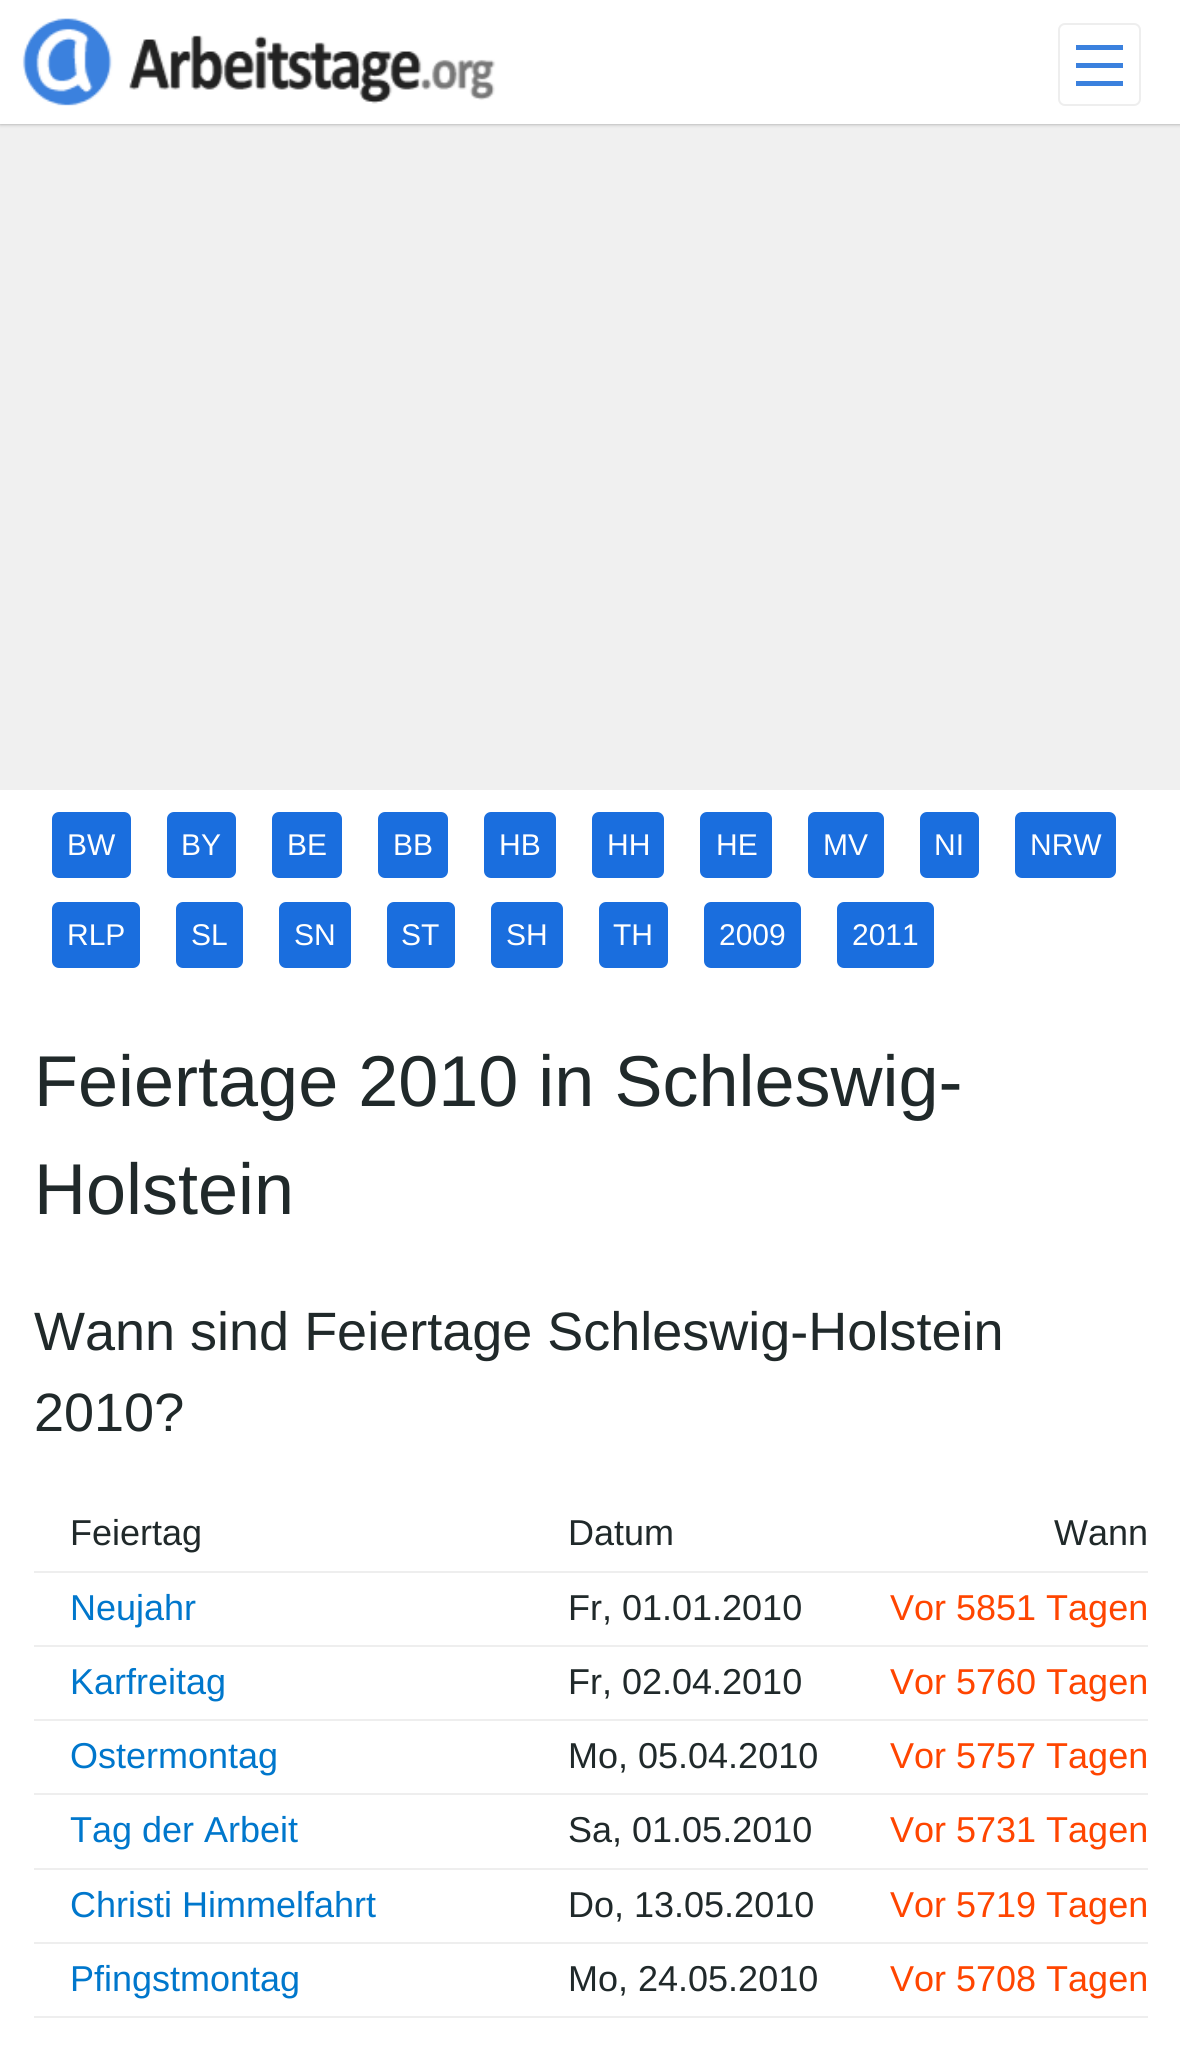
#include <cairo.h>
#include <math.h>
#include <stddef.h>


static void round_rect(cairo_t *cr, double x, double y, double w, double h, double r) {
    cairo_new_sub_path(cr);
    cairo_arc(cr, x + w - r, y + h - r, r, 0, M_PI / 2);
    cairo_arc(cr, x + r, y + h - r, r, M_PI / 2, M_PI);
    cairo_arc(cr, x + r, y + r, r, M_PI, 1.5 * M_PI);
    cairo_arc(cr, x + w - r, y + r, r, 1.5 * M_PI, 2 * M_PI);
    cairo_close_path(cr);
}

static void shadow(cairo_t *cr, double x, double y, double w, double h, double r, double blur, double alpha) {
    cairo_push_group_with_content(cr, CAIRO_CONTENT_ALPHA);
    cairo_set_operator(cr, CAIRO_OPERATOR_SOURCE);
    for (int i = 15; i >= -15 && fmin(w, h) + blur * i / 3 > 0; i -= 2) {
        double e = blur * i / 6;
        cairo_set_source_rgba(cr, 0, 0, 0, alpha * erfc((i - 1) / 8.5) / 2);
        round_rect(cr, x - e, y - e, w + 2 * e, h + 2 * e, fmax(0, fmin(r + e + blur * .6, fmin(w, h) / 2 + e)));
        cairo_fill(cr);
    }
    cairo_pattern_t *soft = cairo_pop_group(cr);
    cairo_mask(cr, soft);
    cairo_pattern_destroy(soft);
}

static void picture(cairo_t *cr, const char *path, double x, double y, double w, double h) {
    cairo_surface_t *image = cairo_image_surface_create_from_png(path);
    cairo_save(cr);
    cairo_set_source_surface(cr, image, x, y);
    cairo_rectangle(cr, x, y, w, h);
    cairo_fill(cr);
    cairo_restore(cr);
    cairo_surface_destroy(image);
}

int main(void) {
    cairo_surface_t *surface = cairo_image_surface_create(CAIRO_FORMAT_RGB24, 1180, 2050);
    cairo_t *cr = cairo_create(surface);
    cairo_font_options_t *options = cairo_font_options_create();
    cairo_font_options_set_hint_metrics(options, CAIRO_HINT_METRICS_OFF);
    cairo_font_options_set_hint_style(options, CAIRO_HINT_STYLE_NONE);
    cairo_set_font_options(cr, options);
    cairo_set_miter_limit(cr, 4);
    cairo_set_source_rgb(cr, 0.941, 0.941, 0.941);
    cairo_paint(cr);
    cairo_set_source_rgb(cr, 0, 0, 0);
    shadow(cr, 0, 0, 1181, 124, 0, 2, 0.35);
    cairo_set_source_rgb(cr, 1, 1, 1);
    cairo_rectangle(cr, 0, 0, 1180, 124);
    cairo_fill(cr);
    picture(cr, "img1.png", 22, 18, 474, 88);
    round_rect(cr, 1059, 24, 81, 81, 6);
    cairo_set_source_rgb(cr, 0.933, 0.933, 0.933);
    cairo_stroke(cr);
    cairo_set_source_rgb(cr, 0.231, 0.506, 0.871);
    cairo_rectangle(cr, 1076, 63, 47, 5);
    cairo_fill(cr);
    cairo_rectangle(cr, 1076, 45, 47, 5);
    cairo_fill(cr);
    cairo_rectangle(cr, 1076, 81, 47, 5);
    cairo_fill(cr);
    cairo_set_source_rgb(cr, 1, 1, 1);
    cairo_rectangle(cr, 0, 790, 1180, 1260);
    cairo_fill(cr);
    cairo_set_source_rgb(cr, 0.102, 0.431, 0.871);
    round_rect(cr, 52, 812, 79, 66, 7);
    cairo_fill(cr);
    cairo_select_font_face(cr, "Liberation Sans", CAIRO_FONT_SLANT_NORMAL, CAIRO_FONT_WEIGHT_NORMAL);
    cairo_set_font_size(cr, 30);
    cairo_set_source_rgb(cr, 1, 1, 1);
    cairo_move_to(cr, 67, 855);
    cairo_show_text(cr, "BW");
    cairo_set_source_rgb(cr, 0.102, 0.431, 0.871);
    round_rect(cr, 167, 812, 69, 66, 7);
    cairo_fill(cr);
    cairo_set_source_rgb(cr, 1, 1, 1);
    cairo_move_to(cr, 181, 855);
    cairo_show_text(cr, "BY");
    cairo_set_source_rgb(cr, 0.102, 0.431, 0.871);
    round_rect(cr, 272, 812, 70, 66, 7);
    cairo_fill(cr);
    cairo_set_source_rgb(cr, 1, 1, 1);
    cairo_move_to(cr, 287, 855);
    cairo_show_text(cr, "BE");
    cairo_set_source_rgb(cr, 0.102, 0.431, 0.871);
    round_rect(cr, 378, 812, 70, 66, 7);
    cairo_fill(cr);
    cairo_set_source_rgb(cr, 1, 1, 1);
    cairo_move_to(cr, 393, 855);
    cairo_show_text(cr, "BB");
    cairo_set_source_rgb(cr, 0.102, 0.431, 0.871);
    round_rect(cr, 484, 812, 72, 66, 7);
    cairo_fill(cr);
    cairo_set_source_rgb(cr, 1, 1, 1);
    cairo_move_to(cr, 499, 855);
    cairo_show_text(cr, "HB");
    cairo_set_source_rgb(cr, 0.102, 0.431, 0.871);
    round_rect(cr, 592, 812, 72, 66, 7);
    cairo_fill(cr);
    cairo_set_source_rgb(cr, 1, 1, 1);
    cairo_move_to(cr, 607, 855);
    cairo_show_text(cr, "HH");
    cairo_set_source_rgb(cr, 0.102, 0.431, 0.871);
    round_rect(cr, 700, 812, 72, 66, 7);
    cairo_fill(cr);
    cairo_set_source_rgb(cr, 1, 1, 1);
    cairo_move_to(cr, 716, 855);
    cairo_show_text(cr, "HE");
    cairo_set_source_rgb(cr, 0.102, 0.431, 0.871);
    round_rect(cr, 808, 812, 76, 66, 7);
    cairo_fill(cr);
    cairo_set_source_rgb(cr, 1, 1, 1);
    cairo_move_to(cr, 823, 855);
    cairo_show_text(cr, "MV");
    cairo_set_source_rgb(cr, 0.102, 0.431, 0.871);
    round_rect(cr, 920, 812, 59, 66, 7);
    cairo_fill(cr);
    cairo_set_source_rgb(cr, 1, 1, 1);
    cairo_move_to(cr, 934, 855);
    cairo_show_text(cr, "NI");
    cairo_set_source_rgb(cr, 0.102, 0.431, 0.871);
    round_rect(cr, 1015, 812, 101, 66, 7);
    cairo_fill(cr);
    cairo_set_source_rgb(cr, 1, 1, 1);
    cairo_move_to(cr, 1030, 855);
    cairo_show_text(cr, "NRW");
    cairo_set_source_rgb(cr, 0.102, 0.431, 0.871);
    round_rect(cr, 52, 902, 88, 66, 7);
    cairo_fill(cr);
    cairo_set_source_rgb(cr, 1, 1, 1);
    cairo_move_to(cr, 67, 945);
    cairo_show_text(cr, "RLP");
    cairo_set_source_rgb(cr, 0.102, 0.431, 0.871);
    round_rect(cr, 176, 902, 67, 66, 7);
    cairo_fill(cr);
    cairo_set_source_rgb(cr, 1, 1, 1);
    cairo_move_to(cr, 191, 945);
    cairo_show_text(cr, "SL");
    cairo_set_source_rgb(cr, 0.102, 0.431, 0.871);
    round_rect(cr, 279, 902, 72, 66, 7);
    cairo_fill(cr);
    cairo_set_source_rgb(cr, 1, 1, 1);
    cairo_move_to(cr, 294, 945);
    cairo_show_text(cr, "SN");
    cairo_set_source_rgb(cr, 0.102, 0.431, 0.871);
    round_rect(cr, 387, 902, 68, 66, 7);
    cairo_fill(cr);
    cairo_set_source_rgb(cr, 1, 1, 1);
    cairo_move_to(cr, 401, 945);
    cairo_show_text(cr, "ST");
    cairo_set_source_rgb(cr, 0.102, 0.431, 0.871);
    round_rect(cr, 491, 902, 72, 66, 7);
    cairo_fill(cr);
    cairo_set_source_rgb(cr, 1, 1, 1);
    cairo_move_to(cr, 506, 945);
    cairo_show_text(cr, "SH");
    cairo_set_source_rgb(cr, 0.102, 0.431, 0.871);
    round_rect(cr, 599, 902, 69, 66, 7);
    cairo_fill(cr);
    cairo_set_source_rgb(cr, 1, 1, 1);
    cairo_move_to(cr, 613, 945);
    cairo_show_text(cr, "TH");
    cairo_set_source_rgb(cr, 0.102, 0.431, 0.871);
    round_rect(cr, 704, 902, 97, 66, 7);
    cairo_fill(cr);
    cairo_set_source_rgb(cr, 1, 1, 1);
    cairo_move_to(cr, 719, 945);
    cairo_show_text(cr, "2009");
    cairo_set_source_rgb(cr, 0.102, 0.431, 0.871);
    round_rect(cr, 837, 902, 97, 66, 7);
    cairo_fill(cr);
    cairo_set_source_rgb(cr, 1, 1, 1);
    cairo_move_to(cr, 852, 945);
    cairo_show_text(cr, "2011");
    cairo_set_font_size(cr, 72);
    cairo_set_source_rgb(cr, 0.125, 0.161, 0.165);
    cairo_move_to(cr, 34, 1106);
    cairo_show_text(cr, "Feiertage 2010 in Schleswig-");
    cairo_move_to(cr, 34, 1214);
    cairo_show_text(cr, "Holstein");
    cairo_set_font_size(cr, 54);
    cairo_move_to(cr, 34, 1350);
    cairo_show_text(cr, "Wann sind Feiertage Schleswig-Holstein");
    cairo_move_to(cr, 34, 1431);
    cairo_show_text(cr, "2010?");
    cairo_set_source_rgb(cr, 0.933, 0.933, 0.933);
    cairo_rectangle(cr, 34, 1571, 1114, 2);
    cairo_fill(cr);
    cairo_set_font_size(cr, 36);
    cairo_set_source_rgb(cr, 0.125, 0.161, 0.165);
    cairo_move_to(cr, 70, 1545);
    cairo_show_text(cr, "Feiertag");
    cairo_move_to(cr, 568, 1545);
    cairo_show_text(cr, "Datum");
    cairo_move_to(cr, 1054, 1545);
    cairo_show_text(cr, "Wann");
    cairo_set_source_rgb(cr, 0.933, 0.933, 0.933);
    cairo_rectangle(cr, 34, 1645, 1114, 2);
    cairo_fill(cr);
    cairo_set_source_rgb(cr, 0, 0.467, 0.8);
    cairo_move_to(cr, 70, 1620);
    cairo_show_text(cr, "Neujahr");
    cairo_set_source_rgb(cr, 0.125, 0.161, 0.165);
    cairo_move_to(cr, 568, 1620);
    cairo_show_text(cr, "Fr, 01.01.2010");
    cairo_set_source_rgb(cr, 1, 0.271, 0);
    cairo_move_to(cr, 890, 1620);
    cairo_show_text(cr, "Vor 5851 Tagen");
    cairo_set_source_rgb(cr, 0.933, 0.933, 0.933);
    cairo_rectangle(cr, 34, 1719, 1114, 2);
    cairo_fill(cr);
    cairo_set_source_rgb(cr, 0, 0.467, 0.8);
    cairo_move_to(cr, 70, 1694);
    cairo_show_text(cr, "Karfreitag");
    cairo_set_source_rgb(cr, 0.125, 0.161, 0.165);
    cairo_move_to(cr, 568, 1694);
    cairo_show_text(cr, "Fr, 02.04.2010");
    cairo_set_source_rgb(cr, 1, 0.271, 0);
    cairo_move_to(cr, 890, 1694);
    cairo_show_text(cr, "Vor 5760 Tagen");
    cairo_set_source_rgb(cr, 0.933, 0.933, 0.933);
    cairo_rectangle(cr, 34, 1793, 1114, 2);
    cairo_fill(cr);
    cairo_set_source_rgb(cr, 0, 0.467, 0.8);
    cairo_move_to(cr, 70, 1768);
    cairo_show_text(cr, "Ostermontag");
    cairo_set_source_rgb(cr, 0.125, 0.161, 0.165);
    cairo_move_to(cr, 568, 1768);
    cairo_show_text(cr, "Mo, 05.04.2010");
    cairo_set_source_rgb(cr, 1, 0.271, 0);
    cairo_move_to(cr, 890, 1768);
    cairo_show_text(cr, "Vor 5757 Tagen");
    cairo_set_source_rgb(cr, 0.933, 0.933, 0.933);
    cairo_rectangle(cr, 34, 1868, 1114, 2);
    cairo_fill(cr);
    cairo_set_source_rgb(cr, 0, 0.467, 0.8);
    cairo_move_to(cr, 70, 1842);
    cairo_show_text(cr, "Tag der Arbeit");
    cairo_set_source_rgb(cr, 0.125, 0.161, 0.165);
    cairo_move_to(cr, 568, 1842);
    cairo_show_text(cr, "Sa, 01.05.2010");
    cairo_set_source_rgb(cr, 1, 0.271, 0);
    cairo_move_to(cr, 890, 1842);
    cairo_show_text(cr, "Vor 5731 Tagen");
    cairo_set_source_rgb(cr, 0.933, 0.933, 0.933);
    cairo_rectangle(cr, 34, 1942, 1114, 2);
    cairo_fill(cr);
    cairo_set_source_rgb(cr, 0, 0.467, 0.8);
    cairo_move_to(cr, 70, 1917);
    cairo_show_text(cr, "Christi Himmelfahrt");
    cairo_set_source_rgb(cr, 0.125, 0.161, 0.165);
    cairo_move_to(cr, 568, 1917);
    cairo_show_text(cr, "Do, 13.05.2010");
    cairo_set_source_rgb(cr, 1, 0.271, 0);
    cairo_move_to(cr, 890, 1917);
    cairo_show_text(cr, "Vor 5719 Tagen");
    cairo_set_source_rgb(cr, 0.933, 0.933, 0.933);
    cairo_rectangle(cr, 34, 2016, 1114, 2);
    cairo_fill(cr);
    cairo_set_source_rgb(cr, 0, 0.467, 0.8);
    cairo_move_to(cr, 70, 1991);
    cairo_show_text(cr, "Pfingstmontag");
    cairo_set_source_rgb(cr, 0.125, 0.161, 0.165);
    cairo_move_to(cr, 568, 1991);
    cairo_show_text(cr, "Mo, 24.05.2010");
    cairo_set_source_rgb(cr, 1, 0.271, 0);
    cairo_move_to(cr, 890, 1991);
    cairo_show_text(cr, "Vor 5708 Tagen");
    cairo_surface_write_to_png(surface, "page.png");
    cairo_font_options_destroy(options);
    cairo_destroy(cr);
    cairo_surface_destroy(surface);
    return 0;
}
